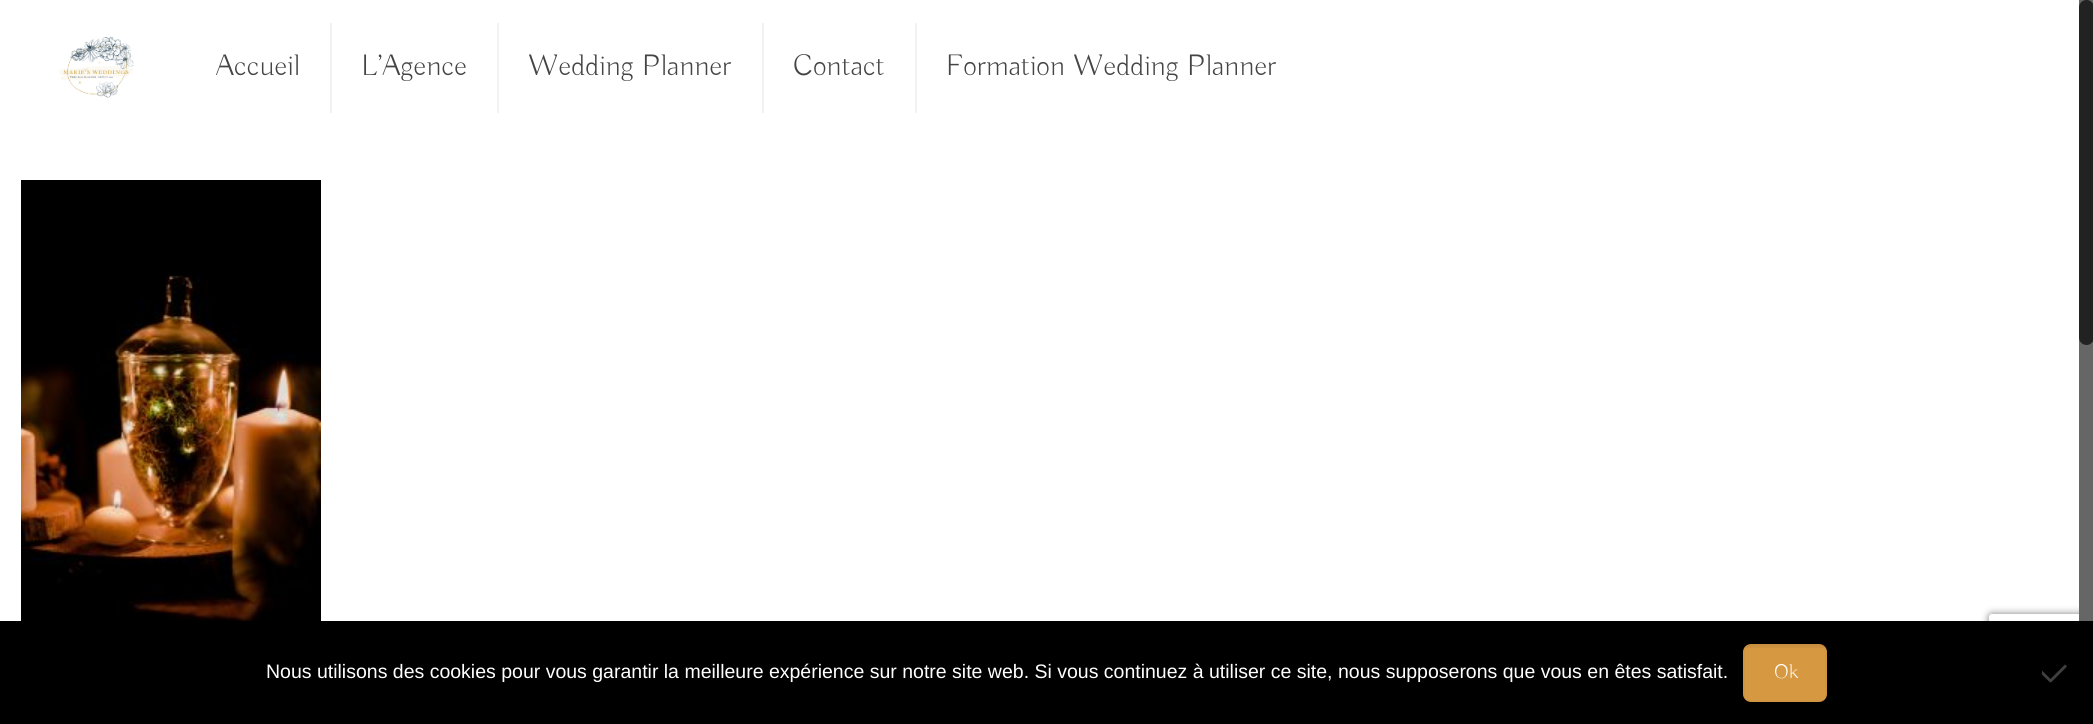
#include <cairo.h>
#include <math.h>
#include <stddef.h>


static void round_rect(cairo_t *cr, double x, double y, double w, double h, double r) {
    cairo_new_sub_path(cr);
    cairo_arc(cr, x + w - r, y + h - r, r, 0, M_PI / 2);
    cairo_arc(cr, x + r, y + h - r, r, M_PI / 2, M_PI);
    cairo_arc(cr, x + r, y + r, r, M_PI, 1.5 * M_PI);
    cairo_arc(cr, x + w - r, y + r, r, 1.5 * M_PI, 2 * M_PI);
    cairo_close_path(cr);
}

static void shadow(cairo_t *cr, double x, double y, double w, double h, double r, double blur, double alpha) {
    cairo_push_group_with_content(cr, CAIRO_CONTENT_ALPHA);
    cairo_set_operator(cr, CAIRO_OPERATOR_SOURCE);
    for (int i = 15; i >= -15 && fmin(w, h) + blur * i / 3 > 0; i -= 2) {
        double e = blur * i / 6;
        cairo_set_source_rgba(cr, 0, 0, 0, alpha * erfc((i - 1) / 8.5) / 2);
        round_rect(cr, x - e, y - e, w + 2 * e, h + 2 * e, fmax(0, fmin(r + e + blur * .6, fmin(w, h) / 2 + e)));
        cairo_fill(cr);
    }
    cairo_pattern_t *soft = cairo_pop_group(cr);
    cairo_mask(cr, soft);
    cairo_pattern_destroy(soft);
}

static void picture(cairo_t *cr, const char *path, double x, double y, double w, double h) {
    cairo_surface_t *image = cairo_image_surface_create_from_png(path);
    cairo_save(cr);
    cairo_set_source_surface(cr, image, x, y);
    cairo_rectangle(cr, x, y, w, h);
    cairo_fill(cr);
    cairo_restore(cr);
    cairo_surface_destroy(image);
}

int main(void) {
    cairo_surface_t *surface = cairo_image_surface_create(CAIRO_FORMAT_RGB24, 2093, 724);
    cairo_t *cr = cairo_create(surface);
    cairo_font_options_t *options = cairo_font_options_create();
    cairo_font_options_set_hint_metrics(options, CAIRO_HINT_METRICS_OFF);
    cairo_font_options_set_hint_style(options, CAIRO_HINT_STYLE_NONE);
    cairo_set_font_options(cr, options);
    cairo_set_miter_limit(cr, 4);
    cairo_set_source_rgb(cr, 1, 1, 1);
    cairo_paint(cr);
    picture(cr, "img1.png", 59, 36, 75, 62);
    cairo_set_source_rgb(cr, 0.949, 0.949, 0.949);
    cairo_rectangle(cr, 330, 23, 2, 90);
    cairo_fill(cr);
    cairo_select_font_face(cr, "Buda Light", CAIRO_FONT_SLANT_NORMAL, CAIRO_FONT_WEIGHT_NORMAL);
    cairo_set_font_size(cr, 30);
    cairo_set_source_rgb(cr, 0.267, 0.267, 0.267);
    cairo_move_to(cr, 216, 75);
    cairo_show_text(cr, "Accueil");
    cairo_set_source_rgb(cr, 0.949, 0.949, 0.949);
    cairo_rectangle(cr, 497, 23, 2, 90);
    cairo_fill(cr);
    cairo_set_source_rgb(cr, 0.267, 0.267, 0.267);
    cairo_move_to(cr, 361, 75);
    cairo_show_text(cr, "L’Agence");
    cairo_set_source_rgb(cr, 0.949, 0.949, 0.949);
    cairo_rectangle(cr, 762, 23, 2, 90);
    cairo_fill(cr);
    cairo_set_source_rgb(cr, 0.267, 0.267, 0.267);
    cairo_move_to(cr, 528, 75);
    cairo_show_text(cr, "Wedding Planner");
    cairo_set_source_rgb(cr, 0.949, 0.949, 0.949);
    cairo_rectangle(cr, 915, 23, 2, 90);
    cairo_fill(cr);
    cairo_set_source_rgb(cr, 0.267, 0.267, 0.267);
    cairo_move_to(cr, 793, 75);
    cairo_show_text(cr, "Contact");
    cairo_move_to(cr, 946, 75);
    cairo_show_text(cr, "Formation Wedding Planner");
    picture(cr, "img2.png", 21, 180, 300, 441);
    cairo_save(cr);
    cairo_set_fill_rule(cr, CAIRO_FILL_RULE_EVEN_ODD);
    cairo_new_path(cr);
    cairo_move_to(cr, 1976, 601);
    cairo_line_to(cr, 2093, 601);
    cairo_line_to(cr, 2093, 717);
    cairo_line_to(cr, 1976, 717);
    cairo_close_path(cr);
    cairo_move_to(cr, 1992, 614);
    cairo_line_to(cr, 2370, 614);
    cairo_curve_to(cr, 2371.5, 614, 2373, 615.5, 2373, 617);
    cairo_line_to(cr, 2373, 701);
    cairo_curve_to(cr, 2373, 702.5, 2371.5, 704, 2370, 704);
    cairo_line_to(cr, 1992, 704);
    cairo_curve_to(cr, 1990.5, 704, 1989, 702.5, 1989, 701);
    cairo_line_to(cr, 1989, 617);
    cairo_curve_to(cr, 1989, 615.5, 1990.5, 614, 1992, 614);
    cairo_close_path(cr);
    cairo_clip(cr);
    cairo_set_source_rgb(cr, 0.502, 0.502, 0.502);
    shadow(cr, 1989, 614, 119, 90, 3, 4, 1);
    cairo_restore(cr);
    cairo_set_source_rgb(cr, 0.4, 0.4, 0.4);
    cairo_rectangle(cr, 2079, 0, 14, 621);
    cairo_fill(cr);
    cairo_set_source_rgb(cr, 0.133, 0.133, 0.133);
    round_rect(cr, 2079, 0, 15, 345, 7.5);
    cairo_fill(cr);
    cairo_set_source_rgb(cr, 0, 0, 0);
    cairo_rectangle(cr, 0, 621, 2093, 103);
    cairo_fill(cr);
    cairo_select_font_face(cr, "Liberation Sans", CAIRO_FONT_SLANT_NORMAL, CAIRO_FONT_WEIGHT_NORMAL);
    cairo_set_font_size(cr, 19.5);
    cairo_set_source_rgb(cr, 1, 1, 1);
    cairo_move_to(cr, 266, 678);
    cairo_show_text(cr, "Nous utilisons des cookies pour vous garantir la meilleure expérience sur notre site web. Si vous continuez à utiliser ce site, nous supposerons que vous en êtes satisfait.");
    cairo_set_source_rgb(cr, 0.839, 0.6, 0.259);
    round_rect(cr, 1743, 644, 84, 58, 8);
    cairo_fill(cr);
    cairo_set_source_rgba(cr, 0, 0, 0, 0.05);
    cairo_rectangle(cr, 1745, 644, 80, 4);
    cairo_fill(cr);
    cairo_rectangle(cr, 1744, 645, 82, 56);
    cairo_set_source_rgba(cr, 0, 0, 0, 0.03);
    cairo_stroke(cr);
    cairo_select_font_face(cr, "Buda Light", CAIRO_FONT_SLANT_NORMAL, CAIRO_FONT_WEIGHT_NORMAL);
    cairo_set_font_size(cr, 20);
    cairo_set_source_rgb(cr, 1, 1, 1);
    cairo_move_to(cr, 1774, 678);
    cairo_show_text(cr, "Ok");
    cairo_set_source_rgb(cr, 0.251, 0.251, 0.251);
    cairo_new_path(cr);
    cairo_move_to(cr, 2065, 664.5);
    cairo_line_to(cr, 2067, 666.5);
    cairo_line_to(cr, 2051, 682.5);
    cairo_line_to(cr, 2049, 680.5);
    cairo_close_path(cr);
    cairo_fill(cr);
    cairo_new_path(cr);
    cairo_move_to(cr, 2042, 674.5);
    cairo_line_to(cr, 2042, 670.5);
    cairo_line_to(cr, 2052, 680.5);
    cairo_line_to(cr, 2050, 682.5);
    cairo_close_path(cr);
    cairo_fill(cr);
    cairo_surface_write_to_png(surface, "page.png");
    cairo_font_options_destroy(options);
    cairo_destroy(cr);
    cairo_surface_destroy(surface);
    return 0;
}
